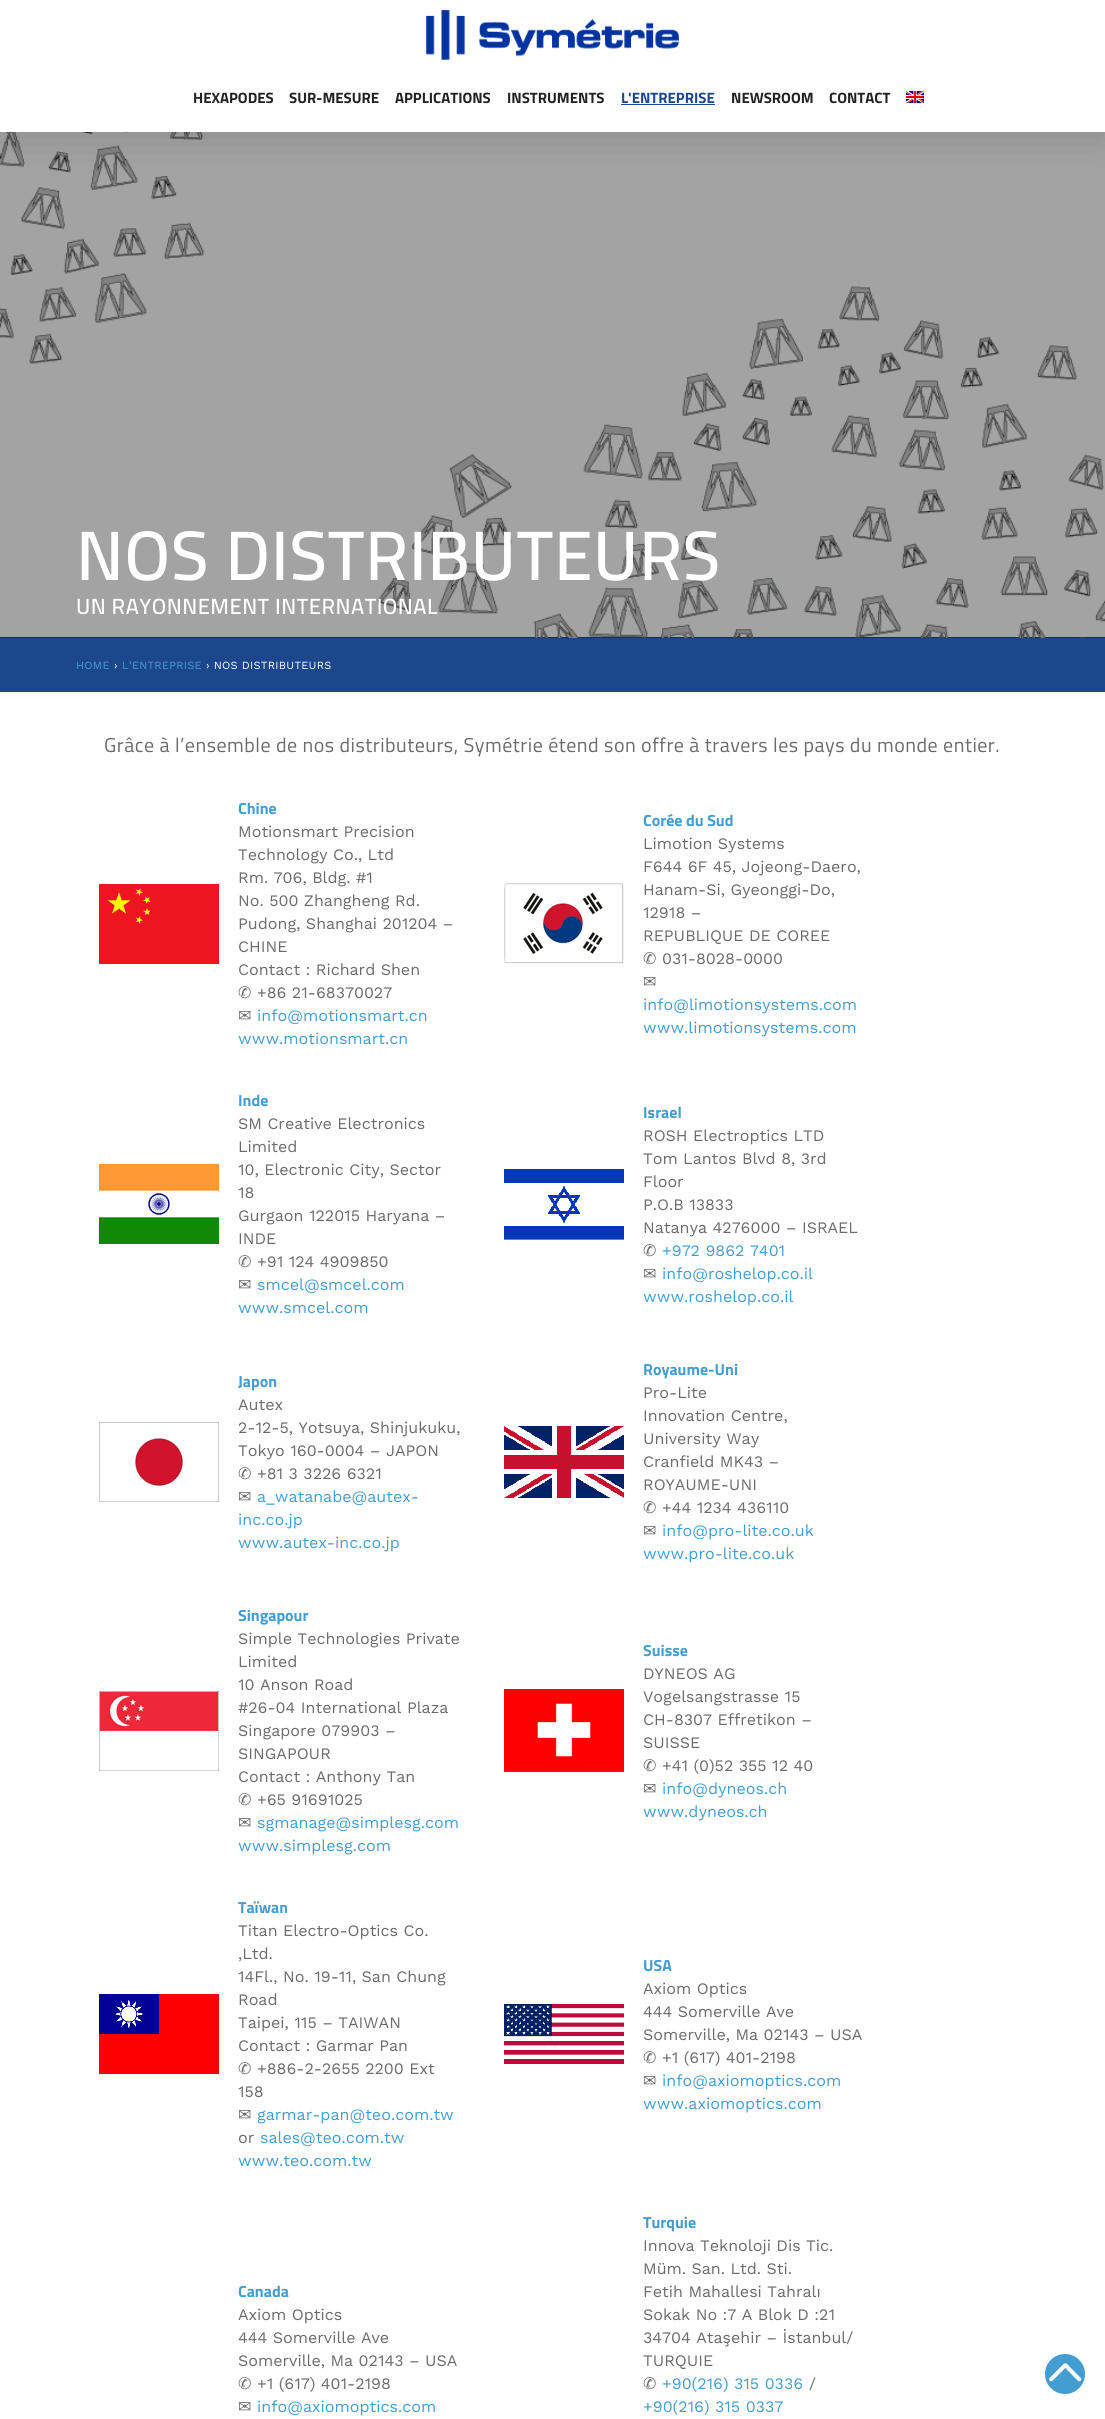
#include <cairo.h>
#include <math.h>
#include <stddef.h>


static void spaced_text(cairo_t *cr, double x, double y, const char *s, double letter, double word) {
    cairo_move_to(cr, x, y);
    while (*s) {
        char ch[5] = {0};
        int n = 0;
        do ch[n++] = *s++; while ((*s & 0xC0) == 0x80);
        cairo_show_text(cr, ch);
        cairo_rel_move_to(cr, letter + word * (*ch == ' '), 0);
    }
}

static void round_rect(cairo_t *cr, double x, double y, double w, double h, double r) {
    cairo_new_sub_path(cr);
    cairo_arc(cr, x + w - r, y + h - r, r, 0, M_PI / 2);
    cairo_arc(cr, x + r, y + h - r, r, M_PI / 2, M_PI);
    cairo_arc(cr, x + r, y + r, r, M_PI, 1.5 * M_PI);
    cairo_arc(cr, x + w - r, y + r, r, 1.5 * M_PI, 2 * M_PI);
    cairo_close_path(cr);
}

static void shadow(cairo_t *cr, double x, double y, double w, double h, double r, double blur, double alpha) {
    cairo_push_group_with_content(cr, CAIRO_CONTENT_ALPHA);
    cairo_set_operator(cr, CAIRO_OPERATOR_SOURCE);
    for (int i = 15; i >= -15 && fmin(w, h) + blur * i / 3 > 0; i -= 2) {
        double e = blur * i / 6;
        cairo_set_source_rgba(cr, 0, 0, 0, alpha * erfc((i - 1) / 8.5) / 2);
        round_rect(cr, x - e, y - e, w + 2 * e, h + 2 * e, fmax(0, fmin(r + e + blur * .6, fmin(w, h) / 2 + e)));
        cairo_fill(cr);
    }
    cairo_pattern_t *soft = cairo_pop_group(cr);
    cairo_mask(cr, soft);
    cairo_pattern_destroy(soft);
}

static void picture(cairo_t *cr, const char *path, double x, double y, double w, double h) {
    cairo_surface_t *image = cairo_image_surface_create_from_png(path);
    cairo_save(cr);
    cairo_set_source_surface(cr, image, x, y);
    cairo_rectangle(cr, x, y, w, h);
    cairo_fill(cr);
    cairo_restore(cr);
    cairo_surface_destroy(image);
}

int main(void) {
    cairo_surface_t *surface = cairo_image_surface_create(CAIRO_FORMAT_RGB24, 1105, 2419);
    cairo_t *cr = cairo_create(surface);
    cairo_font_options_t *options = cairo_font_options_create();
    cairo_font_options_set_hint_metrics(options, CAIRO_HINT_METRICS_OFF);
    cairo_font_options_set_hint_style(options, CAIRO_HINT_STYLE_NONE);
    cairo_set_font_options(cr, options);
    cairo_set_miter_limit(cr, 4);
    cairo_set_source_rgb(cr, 1, 1, 1);
    cairo_paint(cr);
    cairo_set_source_rgb(cr, 0.639, 0.639, 0.639);
    cairo_rectangle(cr, 0, 132, 1105, 505);
    cairo_fill(cr);
    cairo_set_source_rgb(cr, 0.071, 0.176, 0.353);
    cairo_rectangle(cr, 0, 637, 1105, 1);
    cairo_fill(cr);
    picture(cr, "img3.png", 0, 132, 1105, 506);
    cairo_set_source_rgb(cr, 0, 0, 0);
    shadow(cr, 0, 3, 1105, 132, 0, 22.5, 0.15);
    cairo_set_source_rgb(cr, 1, 1, 1);
    cairo_rectangle(cr, 0, 0, 1105, 132);
    cairo_fill(cr);
    picture(cr, "img1.png", 426, 10, 253, 50);
    cairo_select_font_face(cr, "Cairo", CAIRO_FONT_SLANT_NORMAL, CAIRO_FONT_WEIGHT_BOLD);
    cairo_set_font_size(cr, 15);
    cairo_set_source_rgb(cr, 0.133, 0.133, 0.133);
    cairo_move_to(cr, 193, 103);
    cairo_show_text(cr, "HEXAPODES");
    cairo_move_to(cr, 289, 103);
    cairo_show_text(cr, "SUR-MESURE");
    cairo_move_to(cr, 395, 103);
    cairo_show_text(cr, "APPLICATIONS");
    cairo_move_to(cr, 507, 103);
    cairo_show_text(cr, "INSTRUMENTS");
    cairo_set_source_rgb(cr, 0.11, 0.278, 0.549);
    cairo_move_to(cr, 621, 103);
    cairo_show_text(cr, "L'ENTREPRISE");
    cairo_rectangle(cr, 621, 104, 94, 1);
    cairo_fill(cr);
    cairo_set_source_rgb(cr, 0.133, 0.133, 0.133);
    cairo_move_to(cr, 731, 103);
    cairo_show_text(cr, "NEWSROOM");
    cairo_move_to(cr, 829, 103);
    cairo_show_text(cr, "CONTACT");
    picture(cr, "img2.png", 906, 91, 18, 12);
    cairo_select_font_face(cr, "Cairo SemiBold", CAIRO_FONT_SLANT_NORMAL, CAIRO_FONT_WEIGHT_NORMAL);
    cairo_set_font_size(cr, 70);
    cairo_set_source_rgb(cr, 1, 1, 1);
    spaced_text(cr, 76, 580, "NOS DISTRIBUTEURS", 0.5, 0);
    cairo_set_font_size(cr, 22);
    spaced_text(cr, 76, 614, "UN RAYONNEMENT INTERNATIONAL", 0.5, 0);
    cairo_set_source_rgb(cr, 0.11, 0.278, 0.549);
    cairo_rectangle(cr, 0, 638, 1105, 54);
    cairo_fill(cr);
    cairo_select_font_face(cr, "Work Sans", CAIRO_FONT_SLANT_NORMAL, CAIRO_FONT_WEIGHT_NORMAL);
    cairo_set_font_size(cr, 11);
    cairo_set_source_rgb(cr, 0.267, 0.616, 0.82);
    spaced_text(cr, 76, 669, "HOME", 0.25, 0);
    cairo_set_source_rgb(cr, 1, 1, 1);
    spaced_text(cr, 114, 669, "›", 0.25, 0);
    cairo_set_source_rgb(cr, 0.267, 0.616, 0.82);
    spaced_text(cr, 122, 669, "L’ENTREPRISE", 0.25, 0);
    cairo_set_source_rgb(cr, 1, 1, 1);
    spaced_text(cr, 206, 669, "› NOS DISTRIBUTEURS", 0.25, 0);
    cairo_select_font_face(cr, "Cairo", CAIRO_FONT_SLANT_NORMAL, CAIRO_FONT_WEIGHT_NORMAL);
    cairo_set_font_size(cr, 20);
    cairo_set_source_rgb(cr, 0.42, 0.42, 0.42);
    spaced_text(cr, 104, 752, "Grâce à l’ensemble de nos distributeurs, Symétrie étend son offre à travers les pays du monde entier.", 0.5, 0);
    picture(cr, "img4.png", 99, 884, 120, 80);
    cairo_select_font_face(cr, "Cairo", CAIRO_FONT_SLANT_NORMAL, CAIRO_FONT_WEIGHT_BOLD);
    cairo_set_font_size(cr, 16);
    cairo_set_source_rgb(cr, 0.267, 0.616, 0.82);
    cairo_move_to(cr, 238, 814);
    cairo_show_text(cr, "Chine");
    cairo_select_font_face(cr, "Work Sans", CAIRO_FONT_SLANT_NORMAL, CAIRO_FONT_WEIGHT_NORMAL);
    cairo_set_source_rgb(cr, 0.42, 0.42, 0.42);
    cairo_move_to(cr, 238, 837);
    cairo_show_text(cr, "Motionsmart Precision");
    cairo_move_to(cr, 238, 860);
    cairo_show_text(cr, "Technology Co., Ltd");
    cairo_move_to(cr, 238, 883);
    cairo_show_text(cr, "Rm. 706, Bldg. #1");
    cairo_move_to(cr, 238, 906);
    cairo_show_text(cr, "No. 500 Zhangheng Rd.");
    cairo_move_to(cr, 238, 929);
    cairo_show_text(cr, "Pudong, Shanghai 201204 –");
    cairo_move_to(cr, 238, 952);
    cairo_show_text(cr, "CHINE");
    cairo_move_to(cr, 238, 975);
    cairo_show_text(cr, "Contact : Richard Shen");
    cairo_select_font_face(cr, "DejaVu Sans", CAIRO_FONT_SLANT_NORMAL, CAIRO_FONT_WEIGHT_NORMAL);
    cairo_move_to(cr, 238, 998);
    cairo_show_text(cr, "✆");
    cairo_select_font_face(cr, "Work Sans", CAIRO_FONT_SLANT_NORMAL, CAIRO_FONT_WEIGHT_NORMAL);
    cairo_move_to(cr, 257, 998);
    cairo_show_text(cr, "+86 21-68370027");
    cairo_select_font_face(cr, "DejaVu Sans", CAIRO_FONT_SLANT_NORMAL, CAIRO_FONT_WEIGHT_NORMAL);
    cairo_move_to(cr, 238, 1021);
    cairo_show_text(cr, "✉");
    cairo_select_font_face(cr, "Work Sans", CAIRO_FONT_SLANT_NORMAL, CAIRO_FONT_WEIGHT_NORMAL);
    cairo_set_source_rgb(cr, 0.267, 0.616, 0.82);
    cairo_move_to(cr, 257, 1021);
    cairo_show_text(cr, "info@motionsmart.cn");
    cairo_move_to(cr, 238, 1044);
    cairo_show_text(cr, "www.motionsmart.cn");
    picture(cr, "img5.png", 504, 883, 120, 81);
    cairo_select_font_face(cr, "Cairo", CAIRO_FONT_SLANT_NORMAL, CAIRO_FONT_WEIGHT_BOLD);
    cairo_move_to(cr, 643, 826);
    cairo_show_text(cr, "Corée du Sud");
    cairo_select_font_face(cr, "Work Sans", CAIRO_FONT_SLANT_NORMAL, CAIRO_FONT_WEIGHT_NORMAL);
    cairo_set_source_rgb(cr, 0.42, 0.42, 0.42);
    cairo_move_to(cr, 643, 849);
    cairo_show_text(cr, "Limotion Systems");
    cairo_move_to(cr, 643, 872);
    cairo_show_text(cr, "F644 6F 45, Jojeong-Daero,");
    cairo_move_to(cr, 643, 895);
    cairo_show_text(cr, "Hanam-Si, Gyeonggi-Do,");
    cairo_move_to(cr, 643, 918);
    cairo_show_text(cr, "12918 –");
    cairo_move_to(cr, 643, 941);
    cairo_show_text(cr, "REPUBLIQUE DE COREE");
    cairo_select_font_face(cr, "DejaVu Sans", CAIRO_FONT_SLANT_NORMAL, CAIRO_FONT_WEIGHT_NORMAL);
    cairo_move_to(cr, 643, 964);
    cairo_show_text(cr, "✆");
    cairo_select_font_face(cr, "Work Sans", CAIRO_FONT_SLANT_NORMAL, CAIRO_FONT_WEIGHT_NORMAL);
    cairo_move_to(cr, 662, 964);
    cairo_show_text(cr, "031-8028-0000");
    cairo_select_font_face(cr, "DejaVu Sans", CAIRO_FONT_SLANT_NORMAL, CAIRO_FONT_WEIGHT_NORMAL);
    cairo_move_to(cr, 643, 987);
    cairo_show_text(cr, "✉");
    cairo_select_font_face(cr, "Work Sans", CAIRO_FONT_SLANT_NORMAL, CAIRO_FONT_WEIGHT_NORMAL);
    cairo_set_source_rgb(cr, 0.267, 0.616, 0.82);
    cairo_move_to(cr, 643, 1010);
    cairo_show_text(cr, "info@limotionsystems.com");
    cairo_move_to(cr, 643, 1033);
    cairo_show_text(cr, "www.limotionsystems.com");
    picture(cr, "img6.png", 99, 1164, 120, 80);
    cairo_select_font_face(cr, "Cairo", CAIRO_FONT_SLANT_NORMAL, CAIRO_FONT_WEIGHT_BOLD);
    cairo_move_to(cr, 238, 1106);
    cairo_show_text(cr, "Inde");
    cairo_select_font_face(cr, "Work Sans", CAIRO_FONT_SLANT_NORMAL, CAIRO_FONT_WEIGHT_NORMAL);
    cairo_set_source_rgb(cr, 0.42, 0.42, 0.42);
    cairo_move_to(cr, 238, 1129);
    cairo_show_text(cr, "SM Creative Electronics");
    cairo_move_to(cr, 238, 1152);
    cairo_show_text(cr, "Limited");
    cairo_move_to(cr, 238, 1175);
    cairo_show_text(cr, "10, Electronic City, Sector");
    cairo_move_to(cr, 238, 1198);
    cairo_show_text(cr, "18");
    cairo_move_to(cr, 238, 1221);
    cairo_show_text(cr, "Gurgaon 122015 Haryana –");
    cairo_move_to(cr, 238, 1244);
    cairo_show_text(cr, "INDE");
    cairo_select_font_face(cr, "DejaVu Sans", CAIRO_FONT_SLANT_NORMAL, CAIRO_FONT_WEIGHT_NORMAL);
    cairo_move_to(cr, 238, 1267);
    cairo_show_text(cr, "✆");
    cairo_select_font_face(cr, "Work Sans", CAIRO_FONT_SLANT_NORMAL, CAIRO_FONT_WEIGHT_NORMAL);
    cairo_move_to(cr, 257, 1267);
    cairo_show_text(cr, "+91 124 4909850");
    cairo_select_font_face(cr, "DejaVu Sans", CAIRO_FONT_SLANT_NORMAL, CAIRO_FONT_WEIGHT_NORMAL);
    cairo_move_to(cr, 238, 1290);
    cairo_show_text(cr, "✉");
    cairo_select_font_face(cr, "Work Sans", CAIRO_FONT_SLANT_NORMAL, CAIRO_FONT_WEIGHT_NORMAL);
    cairo_set_source_rgb(cr, 0.267, 0.616, 0.82);
    cairo_move_to(cr, 257, 1290);
    cairo_show_text(cr, "smcel@smcel.com");
    cairo_move_to(cr, 238, 1313);
    cairo_show_text(cr, "www.smcel.com");
    picture(cr, "img7.png", 504, 1169, 120, 71);
    cairo_select_font_face(cr, "Cairo", CAIRO_FONT_SLANT_NORMAL, CAIRO_FONT_WEIGHT_BOLD);
    cairo_move_to(cr, 643, 1118);
    cairo_show_text(cr, "Israel");
    cairo_select_font_face(cr, "Work Sans", CAIRO_FONT_SLANT_NORMAL, CAIRO_FONT_WEIGHT_NORMAL);
    cairo_set_source_rgb(cr, 0.42, 0.42, 0.42);
    cairo_move_to(cr, 643, 1141);
    cairo_show_text(cr, "ROSH Electroptics LTD");
    cairo_move_to(cr, 643, 1164);
    cairo_show_text(cr, "Tom Lantos Blvd 8, 3rd");
    cairo_move_to(cr, 643, 1187);
    cairo_show_text(cr, "Floor");
    cairo_move_to(cr, 643, 1210);
    cairo_show_text(cr, "P.O.B 13833");
    cairo_move_to(cr, 643, 1233);
    cairo_show_text(cr, "Natanya 4276000 – ISRAEL");
    cairo_select_font_face(cr, "DejaVu Sans", CAIRO_FONT_SLANT_NORMAL, CAIRO_FONT_WEIGHT_NORMAL);
    cairo_move_to(cr, 643, 1256);
    cairo_show_text(cr, "✆");
    cairo_select_font_face(cr, "Work Sans", CAIRO_FONT_SLANT_NORMAL, CAIRO_FONT_WEIGHT_NORMAL);
    cairo_set_source_rgb(cr, 0.267, 0.616, 0.82);
    cairo_move_to(cr, 662, 1256);
    cairo_show_text(cr, "+972 9862 7401");
    cairo_select_font_face(cr, "DejaVu Sans", CAIRO_FONT_SLANT_NORMAL, CAIRO_FONT_WEIGHT_NORMAL);
    cairo_set_source_rgb(cr, 0.42, 0.42, 0.42);
    cairo_move_to(cr, 643, 1279);
    cairo_show_text(cr, "✉");
    cairo_select_font_face(cr, "Work Sans", CAIRO_FONT_SLANT_NORMAL, CAIRO_FONT_WEIGHT_NORMAL);
    cairo_set_source_rgb(cr, 0.267, 0.616, 0.82);
    cairo_move_to(cr, 662, 1279);
    cairo_show_text(cr, "info@roshelop.co.il");
    cairo_move_to(cr, 643, 1302);
    cairo_show_text(cr, "www.roshelop.co.il");
    picture(cr, "img8.png", 99, 1422, 120, 80);
    cairo_select_font_face(cr, "Cairo", CAIRO_FONT_SLANT_NORMAL, CAIRO_FONT_WEIGHT_BOLD);
    cairo_move_to(cr, 238, 1387);
    cairo_show_text(cr, "Japon");
    cairo_select_font_face(cr, "Work Sans", CAIRO_FONT_SLANT_NORMAL, CAIRO_FONT_WEIGHT_NORMAL);
    cairo_set_source_rgb(cr, 0.42, 0.42, 0.42);
    cairo_move_to(cr, 238, 1410);
    cairo_show_text(cr, "Autex");
    cairo_move_to(cr, 238, 1433);
    cairo_show_text(cr, "2-12-5, Yotsuya, Shinjukuku,");
    cairo_move_to(cr, 238, 1456);
    cairo_show_text(cr, "Tokyo 160-0004 – JAPON");
    cairo_select_font_face(cr, "DejaVu Sans", CAIRO_FONT_SLANT_NORMAL, CAIRO_FONT_WEIGHT_NORMAL);
    cairo_move_to(cr, 238, 1479);
    cairo_show_text(cr, "✆");
    cairo_select_font_face(cr, "Work Sans", CAIRO_FONT_SLANT_NORMAL, CAIRO_FONT_WEIGHT_NORMAL);
    cairo_move_to(cr, 257, 1479);
    cairo_show_text(cr, "+81 3 3226 6321");
    cairo_select_font_face(cr, "DejaVu Sans", CAIRO_FONT_SLANT_NORMAL, CAIRO_FONT_WEIGHT_NORMAL);
    cairo_move_to(cr, 238, 1502);
    cairo_show_text(cr, "✉");
    cairo_select_font_face(cr, "Work Sans", CAIRO_FONT_SLANT_NORMAL, CAIRO_FONT_WEIGHT_NORMAL);
    cairo_set_source_rgb(cr, 0.267, 0.616, 0.82);
    cairo_move_to(cr, 257, 1502);
    cairo_show_text(cr, "a_watanabe@autex-");
    cairo_move_to(cr, 238, 1525);
    cairo_show_text(cr, "inc.co.jp");
    cairo_move_to(cr, 238, 1548);
    cairo_show_text(cr, "www.autex-inc.co.jp");
    picture(cr, "img9.png", 504, 1426, 120, 72);
    cairo_select_font_face(cr, "Cairo", CAIRO_FONT_SLANT_NORMAL, CAIRO_FONT_WEIGHT_BOLD);
    cairo_move_to(cr, 643, 1375);
    cairo_show_text(cr, "Royaume-Uni");
    cairo_select_font_face(cr, "Work Sans", CAIRO_FONT_SLANT_NORMAL, CAIRO_FONT_WEIGHT_NORMAL);
    cairo_set_source_rgb(cr, 0.42, 0.42, 0.42);
    cairo_move_to(cr, 643, 1398);
    cairo_show_text(cr, "Pro-Lite");
    cairo_move_to(cr, 643, 1421);
    cairo_show_text(cr, "Innovation Centre,");
    cairo_move_to(cr, 643, 1444);
    cairo_show_text(cr, "University Way");
    cairo_move_to(cr, 643, 1467);
    cairo_show_text(cr, "Cranfield MK43 –");
    cairo_move_to(cr, 643, 1490);
    cairo_show_text(cr, "ROYAUME-UNI");
    cairo_select_font_face(cr, "DejaVu Sans", CAIRO_FONT_SLANT_NORMAL, CAIRO_FONT_WEIGHT_NORMAL);
    cairo_move_to(cr, 643, 1513);
    cairo_show_text(cr, "✆");
    cairo_select_font_face(cr, "Work Sans", CAIRO_FONT_SLANT_NORMAL, CAIRO_FONT_WEIGHT_NORMAL);
    cairo_move_to(cr, 662, 1513);
    cairo_show_text(cr, "+44 1234 436110");
    cairo_select_font_face(cr, "DejaVu Sans", CAIRO_FONT_SLANT_NORMAL, CAIRO_FONT_WEIGHT_NORMAL);
    cairo_move_to(cr, 643, 1536);
    cairo_show_text(cr, "✉");
    cairo_select_font_face(cr, "Work Sans", CAIRO_FONT_SLANT_NORMAL, CAIRO_FONT_WEIGHT_NORMAL);
    cairo_set_source_rgb(cr, 0.267, 0.616, 0.82);
    cairo_move_to(cr, 662, 1536);
    cairo_show_text(cr, "info@pro-lite.co.uk");
    cairo_move_to(cr, 643, 1559);
    cairo_show_text(cr, "www.pro-lite.co.uk");
    picture(cr, "img10.png", 99, 1691, 120, 80);
    cairo_select_font_face(cr, "Cairo", CAIRO_FONT_SLANT_NORMAL, CAIRO_FONT_WEIGHT_BOLD);
    cairo_move_to(cr, 238, 1621);
    cairo_show_text(cr, "Singapour");
    cairo_select_font_face(cr, "Work Sans", CAIRO_FONT_SLANT_NORMAL, CAIRO_FONT_WEIGHT_NORMAL);
    cairo_set_source_rgb(cr, 0.42, 0.42, 0.42);
    cairo_move_to(cr, 238, 1644);
    cairo_show_text(cr, "Simple Technologies Private");
    cairo_move_to(cr, 238, 1667);
    cairo_show_text(cr, "Limited");
    cairo_move_to(cr, 238, 1690);
    cairo_show_text(cr, "10 Anson Road");
    cairo_move_to(cr, 238, 1713);
    cairo_show_text(cr, "#26-04 International Plaza");
    cairo_move_to(cr, 238, 1736);
    cairo_show_text(cr, "Singapore 079903 –");
    cairo_move_to(cr, 238, 1759);
    cairo_show_text(cr, "SINGAPOUR");
    cairo_move_to(cr, 238, 1782);
    cairo_show_text(cr, "Contact : Anthony Tan");
    cairo_select_font_face(cr, "DejaVu Sans", CAIRO_FONT_SLANT_NORMAL, CAIRO_FONT_WEIGHT_NORMAL);
    cairo_move_to(cr, 238, 1805);
    cairo_show_text(cr, "✆");
    cairo_select_font_face(cr, "Work Sans", CAIRO_FONT_SLANT_NORMAL, CAIRO_FONT_WEIGHT_NORMAL);
    cairo_move_to(cr, 257, 1805);
    cairo_show_text(cr, "+65 91691025");
    cairo_select_font_face(cr, "DejaVu Sans", CAIRO_FONT_SLANT_NORMAL, CAIRO_FONT_WEIGHT_NORMAL);
    cairo_move_to(cr, 238, 1828);
    cairo_show_text(cr, "✉");
    cairo_select_font_face(cr, "Work Sans", CAIRO_FONT_SLANT_NORMAL, CAIRO_FONT_WEIGHT_NORMAL);
    cairo_set_source_rgb(cr, 0.267, 0.616, 0.82);
    cairo_move_to(cr, 257, 1828);
    cairo_show_text(cr, "sgmanage@simplesg.com");
    cairo_move_to(cr, 238, 1851);
    cairo_show_text(cr, "www.simplesg.com");
    picture(cr, "img11.png", 504, 1689, 120, 83);
    cairo_select_font_face(cr, "Cairo", CAIRO_FONT_SLANT_NORMAL, CAIRO_FONT_WEIGHT_BOLD);
    cairo_move_to(cr, 643, 1656);
    cairo_show_text(cr, "Suisse");
    cairo_select_font_face(cr, "Work Sans", CAIRO_FONT_SLANT_NORMAL, CAIRO_FONT_WEIGHT_NORMAL);
    cairo_set_source_rgb(cr, 0.42, 0.42, 0.42);
    cairo_move_to(cr, 643, 1679);
    cairo_show_text(cr, "DYNEOS AG");
    cairo_move_to(cr, 643, 1702);
    cairo_show_text(cr, "Vogelsangstrasse 15");
    cairo_move_to(cr, 643, 1725);
    cairo_show_text(cr, "CH-8307 Effretikon –");
    cairo_move_to(cr, 643, 1748);
    cairo_show_text(cr, "SUISSE");
    cairo_select_font_face(cr, "DejaVu Sans", CAIRO_FONT_SLANT_NORMAL, CAIRO_FONT_WEIGHT_NORMAL);
    cairo_move_to(cr, 643, 1771);
    cairo_show_text(cr, "✆");
    cairo_select_font_face(cr, "Work Sans", CAIRO_FONT_SLANT_NORMAL, CAIRO_FONT_WEIGHT_NORMAL);
    cairo_move_to(cr, 662, 1771);
    cairo_show_text(cr, "+41 (0)52 355 12 40");
    cairo_select_font_face(cr, "DejaVu Sans", CAIRO_FONT_SLANT_NORMAL, CAIRO_FONT_WEIGHT_NORMAL);
    cairo_move_to(cr, 643, 1794);
    cairo_show_text(cr, "✉");
    cairo_select_font_face(cr, "Work Sans", CAIRO_FONT_SLANT_NORMAL, CAIRO_FONT_WEIGHT_NORMAL);
    cairo_set_source_rgb(cr, 0.267, 0.616, 0.82);
    cairo_move_to(cr, 662, 1794);
    cairo_show_text(cr, "info@dyneos.ch");
    cairo_move_to(cr, 643, 1817);
    cairo_show_text(cr, "www.dyneos.ch");
    picture(cr, "img12.png", 99, 1994, 120, 80);
    cairo_select_font_face(cr, "Cairo", CAIRO_FONT_SLANT_NORMAL, CAIRO_FONT_WEIGHT_BOLD);
    cairo_move_to(cr, 238, 1913);
    cairo_show_text(cr, "Taïwan");
    cairo_select_font_face(cr, "Work Sans", CAIRO_FONT_SLANT_NORMAL, CAIRO_FONT_WEIGHT_NORMAL);
    cairo_set_source_rgb(cr, 0.42, 0.42, 0.42);
    cairo_move_to(cr, 238, 1936);
    cairo_show_text(cr, "Titan Electro-Optics Co.");
    cairo_move_to(cr, 238, 1959);
    cairo_show_text(cr, ",Ltd.");
    cairo_move_to(cr, 238, 1982);
    cairo_show_text(cr, "14Fl., No. 19-11, San Chung");
    cairo_move_to(cr, 238, 2005);
    cairo_show_text(cr, "Road");
    cairo_move_to(cr, 238, 2028);
    cairo_show_text(cr, "Taipei, 115 – TAIWAN");
    cairo_move_to(cr, 238, 2051);
    cairo_show_text(cr, "Contact : Garmar Pan");
    cairo_select_font_face(cr, "DejaVu Sans", CAIRO_FONT_SLANT_NORMAL, CAIRO_FONT_WEIGHT_NORMAL);
    cairo_move_to(cr, 238, 2074);
    cairo_show_text(cr, "✆");
    cairo_select_font_face(cr, "Work Sans", CAIRO_FONT_SLANT_NORMAL, CAIRO_FONT_WEIGHT_NORMAL);
    cairo_move_to(cr, 257, 2074);
    cairo_show_text(cr, "+886-2-2655 2200 Ext");
    cairo_move_to(cr, 238, 2097);
    cairo_show_text(cr, "158");
    cairo_select_font_face(cr, "DejaVu Sans", CAIRO_FONT_SLANT_NORMAL, CAIRO_FONT_WEIGHT_NORMAL);
    cairo_move_to(cr, 238, 2120);
    cairo_show_text(cr, "✉");
    cairo_select_font_face(cr, "Work Sans", CAIRO_FONT_SLANT_NORMAL, CAIRO_FONT_WEIGHT_NORMAL);
    cairo_set_source_rgb(cr, 0.267, 0.616, 0.82);
    cairo_move_to(cr, 257, 2120);
    cairo_show_text(cr, "garmar-pan@teo.com.tw");
    cairo_set_source_rgb(cr, 0.42, 0.42, 0.42);
    cairo_move_to(cr, 238, 2143);
    cairo_show_text(cr, "or");
    cairo_set_source_rgb(cr, 0.267, 0.616, 0.82);
    cairo_move_to(cr, 260, 2143);
    cairo_show_text(cr, "sales@teo.com.tw");
    cairo_move_to(cr, 238, 2166);
    cairo_show_text(cr, "www.teo.com.tw");
    picture(cr, "img13.png", 504, 2004, 120, 60);
    cairo_select_font_face(cr, "Cairo", CAIRO_FONT_SLANT_NORMAL, CAIRO_FONT_WEIGHT_BOLD);
    cairo_move_to(cr, 643, 1971);
    cairo_show_text(cr, "USA");
    cairo_select_font_face(cr, "Work Sans", CAIRO_FONT_SLANT_NORMAL, CAIRO_FONT_WEIGHT_NORMAL);
    cairo_set_source_rgb(cr, 0.42, 0.42, 0.42);
    cairo_move_to(cr, 643, 1994);
    cairo_show_text(cr, "Axiom Optics");
    cairo_move_to(cr, 643, 2017);
    cairo_show_text(cr, "444 Somerville Ave");
    cairo_move_to(cr, 643, 2040);
    cairo_show_text(cr, "Somerville, Ma 02143 – USA");
    cairo_select_font_face(cr, "DejaVu Sans", CAIRO_FONT_SLANT_NORMAL, CAIRO_FONT_WEIGHT_NORMAL);
    cairo_move_to(cr, 643, 2063);
    cairo_show_text(cr, "✆");
    cairo_select_font_face(cr, "Work Sans", CAIRO_FONT_SLANT_NORMAL, CAIRO_FONT_WEIGHT_NORMAL);
    cairo_move_to(cr, 662, 2063);
    cairo_show_text(cr, "+1 (617) 401-2198");
    cairo_select_font_face(cr, "DejaVu Sans", CAIRO_FONT_SLANT_NORMAL, CAIRO_FONT_WEIGHT_NORMAL);
    cairo_move_to(cr, 643, 2086);
    cairo_show_text(cr, "✉");
    cairo_select_font_face(cr, "Work Sans", CAIRO_FONT_SLANT_NORMAL, CAIRO_FONT_WEIGHT_NORMAL);
    cairo_set_source_rgb(cr, 0.267, 0.616, 0.82);
    cairo_move_to(cr, 662, 2086);
    cairo_show_text(cr, "info@axiomoptics.com");
    cairo_move_to(cr, 643, 2109);
    cairo_show_text(cr, "www.axiomoptics.com");
    cairo_select_font_face(cr, "Cairo", CAIRO_FONT_SLANT_NORMAL, CAIRO_FONT_WEIGHT_BOLD);
    cairo_move_to(cr, 238, 2297);
    cairo_show_text(cr, "Canada");
    cairo_select_font_face(cr, "Work Sans", CAIRO_FONT_SLANT_NORMAL, CAIRO_FONT_WEIGHT_NORMAL);
    cairo_set_source_rgb(cr, 0.42, 0.42, 0.42);
    cairo_move_to(cr, 238, 2320);
    cairo_show_text(cr, "Axiom Optics");
    cairo_move_to(cr, 238, 2343);
    cairo_show_text(cr, "444 Somerville Ave");
    cairo_move_to(cr, 238, 2366);
    cairo_show_text(cr, "Somerville, Ma 02143 – USA");
    cairo_select_font_face(cr, "DejaVu Sans", CAIRO_FONT_SLANT_NORMAL, CAIRO_FONT_WEIGHT_NORMAL);
    cairo_move_to(cr, 238, 2389);
    cairo_show_text(cr, "✆");
    cairo_select_font_face(cr, "Work Sans", CAIRO_FONT_SLANT_NORMAL, CAIRO_FONT_WEIGHT_NORMAL);
    cairo_move_to(cr, 257, 2389);
    cairo_show_text(cr, "+1 (617) 401-2198");
    cairo_select_font_face(cr, "DejaVu Sans", CAIRO_FONT_SLANT_NORMAL, CAIRO_FONT_WEIGHT_NORMAL);
    cairo_move_to(cr, 238, 2412);
    cairo_show_text(cr, "✉");
    cairo_select_font_face(cr, "Work Sans", CAIRO_FONT_SLANT_NORMAL, CAIRO_FONT_WEIGHT_NORMAL);
    cairo_set_source_rgb(cr, 0.267, 0.616, 0.82);
    cairo_move_to(cr, 257, 2412);
    cairo_show_text(cr, "info@axiomoptics.com");
    cairo_select_font_face(cr, "Cairo", CAIRO_FONT_SLANT_NORMAL, CAIRO_FONT_WEIGHT_BOLD);
    cairo_move_to(cr, 643, 2228);
    cairo_show_text(cr, "Turquie");
    cairo_select_font_face(cr, "Work Sans", CAIRO_FONT_SLANT_NORMAL, CAIRO_FONT_WEIGHT_NORMAL);
    cairo_set_source_rgb(cr, 0.42, 0.42, 0.42);
    cairo_move_to(cr, 643, 2251);
    cairo_show_text(cr, "Innova Teknoloji Dis Tic.");
    cairo_move_to(cr, 643, 2274);
    cairo_show_text(cr, "Müm. San. Ltd. Sti.");
    cairo_move_to(cr, 643, 2297);
    cairo_show_text(cr, "Fetih Mahallesi Tahralı");
    cairo_move_to(cr, 643, 2320);
    cairo_show_text(cr, "Sokak No :7 A Blok D :21");
    cairo_move_to(cr, 643, 2343);
    cairo_show_text(cr, "34704 Ataşehir – İstanbul/");
    cairo_move_to(cr, 643, 2366);
    cairo_show_text(cr, "TURQUIE");
    cairo_select_font_face(cr, "DejaVu Sans", CAIRO_FONT_SLANT_NORMAL, CAIRO_FONT_WEIGHT_NORMAL);
    cairo_move_to(cr, 643, 2389);
    cairo_show_text(cr, "✆");
    cairo_select_font_face(cr, "Work Sans", CAIRO_FONT_SLANT_NORMAL, CAIRO_FONT_WEIGHT_NORMAL);
    cairo_set_source_rgb(cr, 0.267, 0.616, 0.82);
    cairo_move_to(cr, 662, 2389);
    cairo_show_text(cr, "+90(216) 315 0336");
    cairo_set_source_rgb(cr, 0.42, 0.42, 0.42);
    cairo_move_to(cr, 809, 2389);
    cairo_show_text(cr, "/");
    cairo_set_source_rgb(cr, 0.267, 0.616, 0.82);
    cairo_move_to(cr, 643, 2412);
    cairo_show_text(cr, "+90(216) 315 0337");
    picture(cr, "img14.png", 1045, 2354, 40, 40);
    cairo_surface_write_to_png(surface, "page.png");
    cairo_font_options_destroy(options);
    cairo_destroy(cr);
    cairo_surface_destroy(surface);
    return 0;
}
